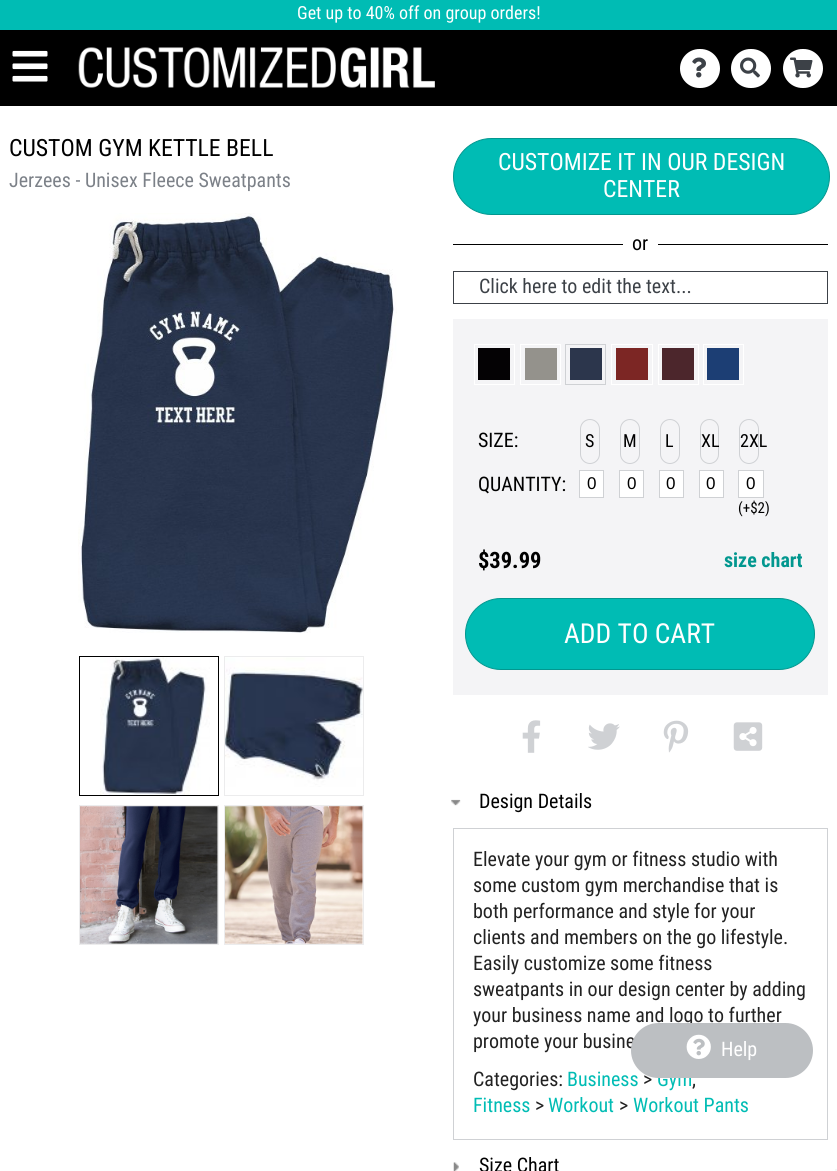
#include <cairo.h>
#include <math.h>
#include <stddef.h>


static void round_rect(cairo_t *cr, double x, double y, double w, double h, double r) {
    cairo_new_sub_path(cr);
    cairo_arc(cr, x + w - r, y + h - r, r, 0, M_PI / 2);
    cairo_arc(cr, x + r, y + h - r, r, M_PI / 2, M_PI);
    cairo_arc(cr, x + r, y + r, r, M_PI, 1.5 * M_PI);
    cairo_arc(cr, x + w - r, y + r, r, 1.5 * M_PI, 2 * M_PI);
    cairo_close_path(cr);
}

static void picture(cairo_t *cr, const char *path, double x, double y, double w, double h) {
    cairo_surface_t *image = cairo_image_surface_create_from_png(path);
    cairo_save(cr);
    cairo_set_source_surface(cr, image, x, y);
    cairo_rectangle(cr, x, y, w, h);
    cairo_fill(cr);
    cairo_restore(cr);
    cairo_surface_destroy(image);
}

int main(void) {
    cairo_surface_t *surface = cairo_image_surface_create(CAIRO_FORMAT_RGB24, 837, 1171);
    cairo_t *cr = cairo_create(surface);
    cairo_font_options_t *options = cairo_font_options_create();
    cairo_font_options_set_hint_metrics(options, CAIRO_HINT_METRICS_OFF);
    cairo_font_options_set_hint_style(options, CAIRO_HINT_STYLE_NONE);
    cairo_set_font_options(cr, options);
    cairo_set_miter_limit(cr, 4);
    cairo_set_source_rgb(cr, 1, 1, 1);
    cairo_paint(cr);
    cairo_set_source_rgb(cr, 0, 0.737, 0.706);
    cairo_rectangle(cr, 0, 0, 837, 30);
    cairo_fill(cr);
    cairo_select_font_face(cr, "Roboto Condensed", CAIRO_FONT_SLANT_NORMAL, CAIRO_FONT_WEIGHT_NORMAL);
    cairo_set_font_size(cr, 18);
    cairo_set_source_rgb(cr, 1, 1, 1);
    cairo_move_to(cr, 297, 19);
    cairo_show_text(cr, "Get up to 40% off on group orders!");
    cairo_set_source_rgb(cr, 0, 0, 0);
    cairo_rectangle(cr, 0, 30, 837, 76);
    cairo_fill(cr);
    picture(cr, "img1.png", 12, 50, 36, 32);
    picture(cr, "img2.png", 78, 47, 357, 41);
    cairo_set_source_rgb(cr, 1, 1, 1);
    round_rect(cr, 680, 49, 40, 39, 19.5);
    cairo_fill(cr);
    picture(cr, "img3.png", 692, 57, 14, 21);
    round_rect(cr, 731, 49, 40, 39, 19.5);
    cairo_fill(cr);
    picture(cr, "img4.png", 740, 57, 20, 21);
    round_rect(cr, 783, 49, 40, 39, 19.5);
    cairo_fill(cr);
    picture(cr, "img5.png", 790, 57, 23, 21);
    cairo_set_font_size(cr, 23.75);
    cairo_set_source_rgb(cr, 0, 0, 0);
    cairo_move_to(cr, 9, 156);
    cairo_show_text(cr, "CUSTOM GYM KETTLE BELL");
    cairo_set_font_size(cr, 20);
    cairo_set_source_rgb(cr, 0.486, 0.506, 0.533);
    cairo_move_to(cr, 9, 187);
    cairo_show_text(cr, "Jerzees - Unisex Fleece Sweatpants");
    picture(cr, "img6.png", 78, 213, 319, 420);
    cairo_rectangle(cr, 79.5, 656.5, 139, 139);
    cairo_set_source_rgb(cr, 0, 0, 0);
    cairo_set_line_width(cr, 1);
    cairo_stroke(cr);
    picture(cr, "img7.png", 100, 657, 110, 138);
    cairo_rectangle(cr, 224.5, 656.5, 139, 139);
    cairo_set_source_rgb(cr, 0.922, 0.925, 0.929);
    cairo_stroke(cr);
    picture(cr, "img8.png", 225, 657, 138, 130);
    cairo_rectangle(cr, 79.5, 805.5, 139, 139);
    cairo_stroke(cr);
    picture(cr, "img9.png", 80, 806, 138, 138);
    cairo_rectangle(cr, 224.5, 805.5, 139, 139);
    cairo_stroke(cr);
    picture(cr, "img10.png", 225, 806, 138, 138);
    cairo_set_source_rgb(cr, 0, 0.737, 0.706);
    round_rect(cr, 453.5, 138.5, 376, 76, 38);
    cairo_fill_preserve(cr);
    cairo_set_source_rgb(cr, 0.008, 0.592, 0.561);
    cairo_stroke(cr);
    cairo_set_font_size(cr, 23.75);
    cairo_set_source_rgb(cr, 1, 1, 1);
    cairo_move_to(cr, 498, 170);
    cairo_show_text(cr, "CUSTOMIZE IT IN OUR DESIGN");
    cairo_move_to(cr, 603, 197);
    cairo_show_text(cr, "CENTER");
    cairo_set_source_rgb(cr, 0, 0, 0);
    cairo_rectangle(cr, 453, 244, 375, 1);
    cairo_fill(cr);
    cairo_set_source_rgb(cr, 1, 1, 1);
    cairo_rectangle(cr, 623, 244, 35, 1);
    cairo_fill(cr);
    cairo_set_font_size(cr, 20);
    cairo_set_source_rgb(cr, 0, 0, 0);
    cairo_move_to(cr, 632, 250);
    cairo_show_text(cr, "or");
    cairo_rectangle(cr, 453.5, 271.5, 374, 32);
    cairo_set_source_rgb(cr, 0.235, 0.255, 0.278);
    cairo_stroke(cr);
    cairo_move_to(cr, 479, 293);
    cairo_show_text(cr, "Click here to edit the text...");
    cairo_set_source_rgb(cr, 0.957, 0.957, 0.961);
    cairo_rectangle(cr, 453, 319, 375, 376);
    cairo_fill(cr);
    cairo_rectangle(cr, 474.5, 344.5, 40, 40);
    cairo_set_source_rgb(cr, 1, 1, 1);
    cairo_stroke(cr);
    cairo_rectangle(cr, 520.5, 344.5, 40, 40);
    cairo_stroke(cr);
    cairo_rectangle(cr, 565.5, 344.5, 40, 40);
    cairo_set_source_rgb(cr, 0.812, 0.82, 0.831);
    cairo_stroke(cr);
    cairo_rectangle(cr, 611.5, 344.5, 41, 40);
    cairo_set_source_rgb(cr, 1, 1, 1);
    cairo_stroke(cr);
    cairo_rectangle(cr, 658.5, 344.5, 40, 40);
    cairo_stroke(cr);
    cairo_rectangle(cr, 703.5, 344.5, 40, 40);
    cairo_stroke(cr);
    cairo_set_source_rgb(cr, 0.016, 0.008, 0.016);
    cairo_rectangle(cr, 478, 348, 32, 32);
    cairo_fill(cr);
    cairo_set_source_rgb(cr, 0.58, 0.573, 0.549);
    cairo_rectangle(cr, 525, 348, 32, 32);
    cairo_fill(cr);
    cairo_set_source_rgb(cr, 0.173, 0.212, 0.298);
    cairo_rectangle(cr, 570, 348, 32, 32);
    cairo_fill(cr);
    cairo_set_source_rgb(cr, 0.486, 0.149, 0.141);
    cairo_rectangle(cr, 616, 348, 32, 32);
    cairo_fill(cr);
    cairo_set_source_rgb(cr, 0.298, 0.149, 0.173);
    cairo_rectangle(cr, 662, 348, 32, 32);
    cairo_fill(cr);
    cairo_set_source_rgb(cr, 0.11, 0.243, 0.455);
    cairo_rectangle(cr, 707, 348, 32, 32);
    cairo_fill(cr);
    cairo_set_source_rgb(cr, 0, 0, 0);
    cairo_move_to(cr, 478, 447);
    cairo_show_text(cr, "SIZE:");
    cairo_move_to(cr, 478, 491);
    cairo_show_text(cr, "QUANTITY:");
    round_rect(cr, 580.5, 419.5, 19, 44, 9.5);
    cairo_set_source_rgb(cr, 0.812, 0.82, 0.831);
    cairo_stroke(cr);
    cairo_set_font_size(cr, 18);
    cairo_set_source_rgb(cr, 0, 0, 0);
    cairo_move_to(cr, 585, 447);
    cairo_show_text(cr, "S");
    cairo_set_source_rgb(cr, 1, 1, 1);
    cairo_rectangle(cr, 579.5, 470.5, 24, 27);
    cairo_fill_preserve(cr);
    cairo_set_source_rgb(cr, 0.812, 0.82, 0.831);
    cairo_stroke(cr);
    cairo_select_font_face(cr, "Liberation Sans", CAIRO_FONT_SLANT_NORMAL, CAIRO_FONT_WEIGHT_NORMAL);
    cairo_set_font_size(cr, 17);
    cairo_set_source_rgb(cr, 0, 0, 0);
    cairo_move_to(cr, 587, 489);
    cairo_show_text(cr, "0");
    round_rect(cr, 620.5, 419.5, 19, 44, 9.5);
    cairo_set_source_rgb(cr, 0.812, 0.82, 0.831);
    cairo_stroke(cr);
    cairo_select_font_face(cr, "Roboto Condensed", CAIRO_FONT_SLANT_NORMAL, CAIRO_FONT_WEIGHT_NORMAL);
    cairo_set_font_size(cr, 18);
    cairo_set_source_rgb(cr, 0, 0, 0);
    cairo_move_to(cr, 623, 447);
    cairo_show_text(cr, "M");
    cairo_set_source_rgb(cr, 1, 1, 1);
    cairo_rectangle(cr, 619.5, 470.5, 24, 27);
    cairo_fill_preserve(cr);
    cairo_set_source_rgb(cr, 0.812, 0.82, 0.831);
    cairo_stroke(cr);
    cairo_select_font_face(cr, "Liberation Sans", CAIRO_FONT_SLANT_NORMAL, CAIRO_FONT_WEIGHT_NORMAL);
    cairo_set_font_size(cr, 17);
    cairo_set_source_rgb(cr, 0, 0, 0);
    cairo_move_to(cr, 627, 489);
    cairo_show_text(cr, "0");
    round_rect(cr, 660.5, 419.5, 19, 44, 9.5);
    cairo_set_source_rgb(cr, 0.812, 0.82, 0.831);
    cairo_stroke(cr);
    cairo_select_font_face(cr, "Roboto Condensed", CAIRO_FONT_SLANT_NORMAL, CAIRO_FONT_WEIGHT_NORMAL);
    cairo_set_font_size(cr, 18);
    cairo_set_source_rgb(cr, 0, 0, 0);
    cairo_move_to(cr, 665, 447);
    cairo_show_text(cr, "L");
    cairo_set_source_rgb(cr, 1, 1, 1);
    cairo_rectangle(cr, 659.5, 470.5, 24, 27);
    cairo_fill_preserve(cr);
    cairo_set_source_rgb(cr, 0.812, 0.82, 0.831);
    cairo_stroke(cr);
    cairo_select_font_face(cr, "Liberation Sans", CAIRO_FONT_SLANT_NORMAL, CAIRO_FONT_WEIGHT_NORMAL);
    cairo_set_font_size(cr, 17);
    cairo_set_source_rgb(cr, 0, 0, 0);
    cairo_move_to(cr, 666, 489);
    cairo_show_text(cr, "0");
    round_rect(cr, 700.5, 419.5, 18, 44, 9);
    cairo_set_source_rgb(cr, 0.812, 0.82, 0.831);
    cairo_stroke(cr);
    cairo_select_font_face(cr, "Roboto Condensed", CAIRO_FONT_SLANT_NORMAL, CAIRO_FONT_WEIGHT_NORMAL);
    cairo_set_font_size(cr, 18);
    cairo_set_source_rgb(cr, 0, 0, 0);
    cairo_move_to(cr, 701, 447);
    cairo_show_text(cr, "XL");
    cairo_set_source_rgb(cr, 1, 1, 1);
    cairo_rectangle(cr, 699.5, 470.5, 24, 27);
    cairo_fill_preserve(cr);
    cairo_set_source_rgb(cr, 0.812, 0.82, 0.831);
    cairo_stroke(cr);
    cairo_select_font_face(cr, "Liberation Sans", CAIRO_FONT_SLANT_NORMAL, CAIRO_FONT_WEIGHT_NORMAL);
    cairo_set_font_size(cr, 17);
    cairo_set_source_rgb(cr, 0, 0, 0);
    cairo_move_to(cr, 706, 489);
    cairo_show_text(cr, "0");
    round_rect(cr, 739.5, 419.5, 19, 44, 9.5);
    cairo_set_source_rgb(cr, 0.812, 0.82, 0.831);
    cairo_stroke(cr);
    cairo_select_font_face(cr, "Roboto Condensed", CAIRO_FONT_SLANT_NORMAL, CAIRO_FONT_WEIGHT_NORMAL);
    cairo_set_font_size(cr, 18);
    cairo_set_source_rgb(cr, 0, 0, 0);
    cairo_move_to(cr, 740, 447);
    cairo_show_text(cr, "2XL");
    cairo_set_source_rgb(cr, 1, 1, 1);
    cairo_rectangle(cr, 738.5, 470.5, 25, 27);
    cairo_fill_preserve(cr);
    cairo_set_source_rgb(cr, 0.812, 0.82, 0.831);
    cairo_stroke(cr);
    cairo_select_font_face(cr, "Liberation Sans", CAIRO_FONT_SLANT_NORMAL, CAIRO_FONT_WEIGHT_NORMAL);
    cairo_set_font_size(cr, 17);
    cairo_set_source_rgb(cr, 0, 0, 0);
    cairo_move_to(cr, 746, 489);
    cairo_show_text(cr, "0");
    cairo_select_font_face(cr, "Roboto Condensed", CAIRO_FONT_SLANT_NORMAL, CAIRO_FONT_WEIGHT_NORMAL);
    cairo_set_font_size(cr, 15);
    cairo_move_to(cr, 738, 513);
    cairo_show_text(cr, "(+$2)");
    cairo_select_font_face(cr, "Roboto Condensed", CAIRO_FONT_SLANT_NORMAL, CAIRO_FONT_WEIGHT_BOLD);
    cairo_set_font_size(cr, 22.5);
    cairo_move_to(cr, 478, 568);
    cairo_show_text(cr, "$39.99");
    cairo_set_font_size(cr, 20);
    cairo_set_source_rgb(cr, 0.008, 0.592, 0.561);
    cairo_move_to(cr, 724, 567);
    cairo_show_text(cr, "size chart");
    cairo_set_source_rgb(cr, 0, 0.737, 0.706);
    round_rect(cr, 465.5, 598.5, 349, 71, 35.5);
    cairo_fill_preserve(cr);
    cairo_set_source_rgb(cr, 0.008, 0.592, 0.561);
    cairo_stroke(cr);
    cairo_select_font_face(cr, "Roboto Condensed", CAIRO_FONT_SLANT_NORMAL, CAIRO_FONT_WEIGHT_NORMAL);
    cairo_set_font_size(cr, 27.5);
    cairo_set_source_rgb(cr, 1, 1, 1);
    cairo_move_to(cr, 564, 643);
    cairo_show_text(cr, "ADD TO CART");
    picture(cr, "img11.png", 522, 720, 19, 33);
    picture(cr, "img12.png", 588, 723, 32, 27);
    picture(cr, "img13.png", 663, 720, 26, 33);
    picture(cr, "img14.png", 733, 722, 30, 29);
    picture(cr, "img15.png", 451, 799, 10, 7);
    cairo_set_font_size(cr, 20);
    cairo_set_source_rgb(cr, 0, 0, 0);
    cairo_move_to(cr, 479, 808);
    cairo_show_text(cr, "Design Details");
    cairo_rectangle(cr, 453.5, 828.5, 374, 311);
    cairo_set_source_rgb(cr, 0.812, 0.82, 0.831);
    cairo_stroke(cr);
    cairo_set_source_rgb(cr, 0.133, 0.133, 0.133);
    cairo_move_to(cr, 473, 866);
    cairo_show_text(cr, "Elevate your gym or fitness studio with");
    cairo_move_to(cr, 473, 892);
    cairo_show_text(cr, "some custom gym merchandise that is");
    cairo_move_to(cr, 473, 918);
    cairo_show_text(cr, "both performance and style for your");
    cairo_move_to(cr, 473, 944);
    cairo_show_text(cr, "clients and members on the go lifestyle.");
    cairo_move_to(cr, 473, 970);
    cairo_show_text(cr, "Easily customize some fitness");
    cairo_move_to(cr, 473, 996);
    cairo_show_text(cr, "sweatpants in our design center by adding");
    cairo_move_to(cr, 473, 1022);
    cairo_show_text(cr, "your business name and logo to further");
    cairo_move_to(cr, 473, 1048);
    cairo_show_text(cr, "promote your busine");
    cairo_move_to(cr, 473, 1086);
    cairo_show_text(cr, "Categories:");
    cairo_set_source_rgb(cr, 0, 0.737, 0.706);
    cairo_move_to(cr, 567, 1086);
    cairo_show_text(cr, "Business");
    cairo_set_source_rgb(cr, 0.133, 0.133, 0.133);
    cairo_move_to(cr, 643, 1086);
    cairo_show_text(cr, ">");
    cairo_set_source_rgb(cr, 0, 0.737, 0.706);
    cairo_move_to(cr, 657, 1086);
    cairo_show_text(cr, "Gym");
    cairo_set_source_rgb(cr, 0.133, 0.133, 0.133);
    cairo_move_to(cr, 692, 1086);
    cairo_show_text(cr, ",");
    cairo_set_source_rgb(cr, 0, 0.737, 0.706);
    cairo_move_to(cr, 473, 1112);
    cairo_show_text(cr, "Fitness");
    cairo_set_source_rgb(cr, 0.133, 0.133, 0.133);
    cairo_move_to(cr, 535, 1112);
    cairo_show_text(cr, ">");
    cairo_set_source_rgb(cr, 0, 0.737, 0.706);
    cairo_move_to(cr, 548, 1112);
    cairo_show_text(cr, "Workout");
    cairo_set_source_rgb(cr, 0.133, 0.133, 0.133);
    cairo_move_to(cr, 619, 1112);
    cairo_show_text(cr, ">");
    cairo_set_source_rgb(cr, 0, 0.737, 0.706);
    cairo_move_to(cr, 633, 1112);
    cairo_show_text(cr, "Workout Pants");
    picture(cr, "img16.png", 453, 1162, 6, 9);
    cairo_set_source_rgb(cr, 0, 0, 0);
    cairo_move_to(cr, 479, 1172);
    cairo_show_text(cr, "Size Chart");
    cairo_set_source_rgb(cr, 0.737, 0.749, 0.761);
    round_rect(cr, 631, 1023, 182, 55, 27.5);
    cairo_fill(cr);
    picture(cr, "img17.png", 686, 1034, 25, 25);
    cairo_set_source_rgb(cr, 1, 1, 1);
    cairo_move_to(cr, 721, 1056);
    cairo_show_text(cr, "Help");
    cairo_set_source_rgb(cr, 0.961, 0.961, 0.961);
    cairo_rectangle(cr, 835, 1169, 2, 2);
    cairo_fill(cr);
    cairo_surface_write_to_png(surface, "page.png");
    cairo_font_options_destroy(options);
    cairo_destroy(cr);
    cairo_surface_destroy(surface);
    return 0;
}
